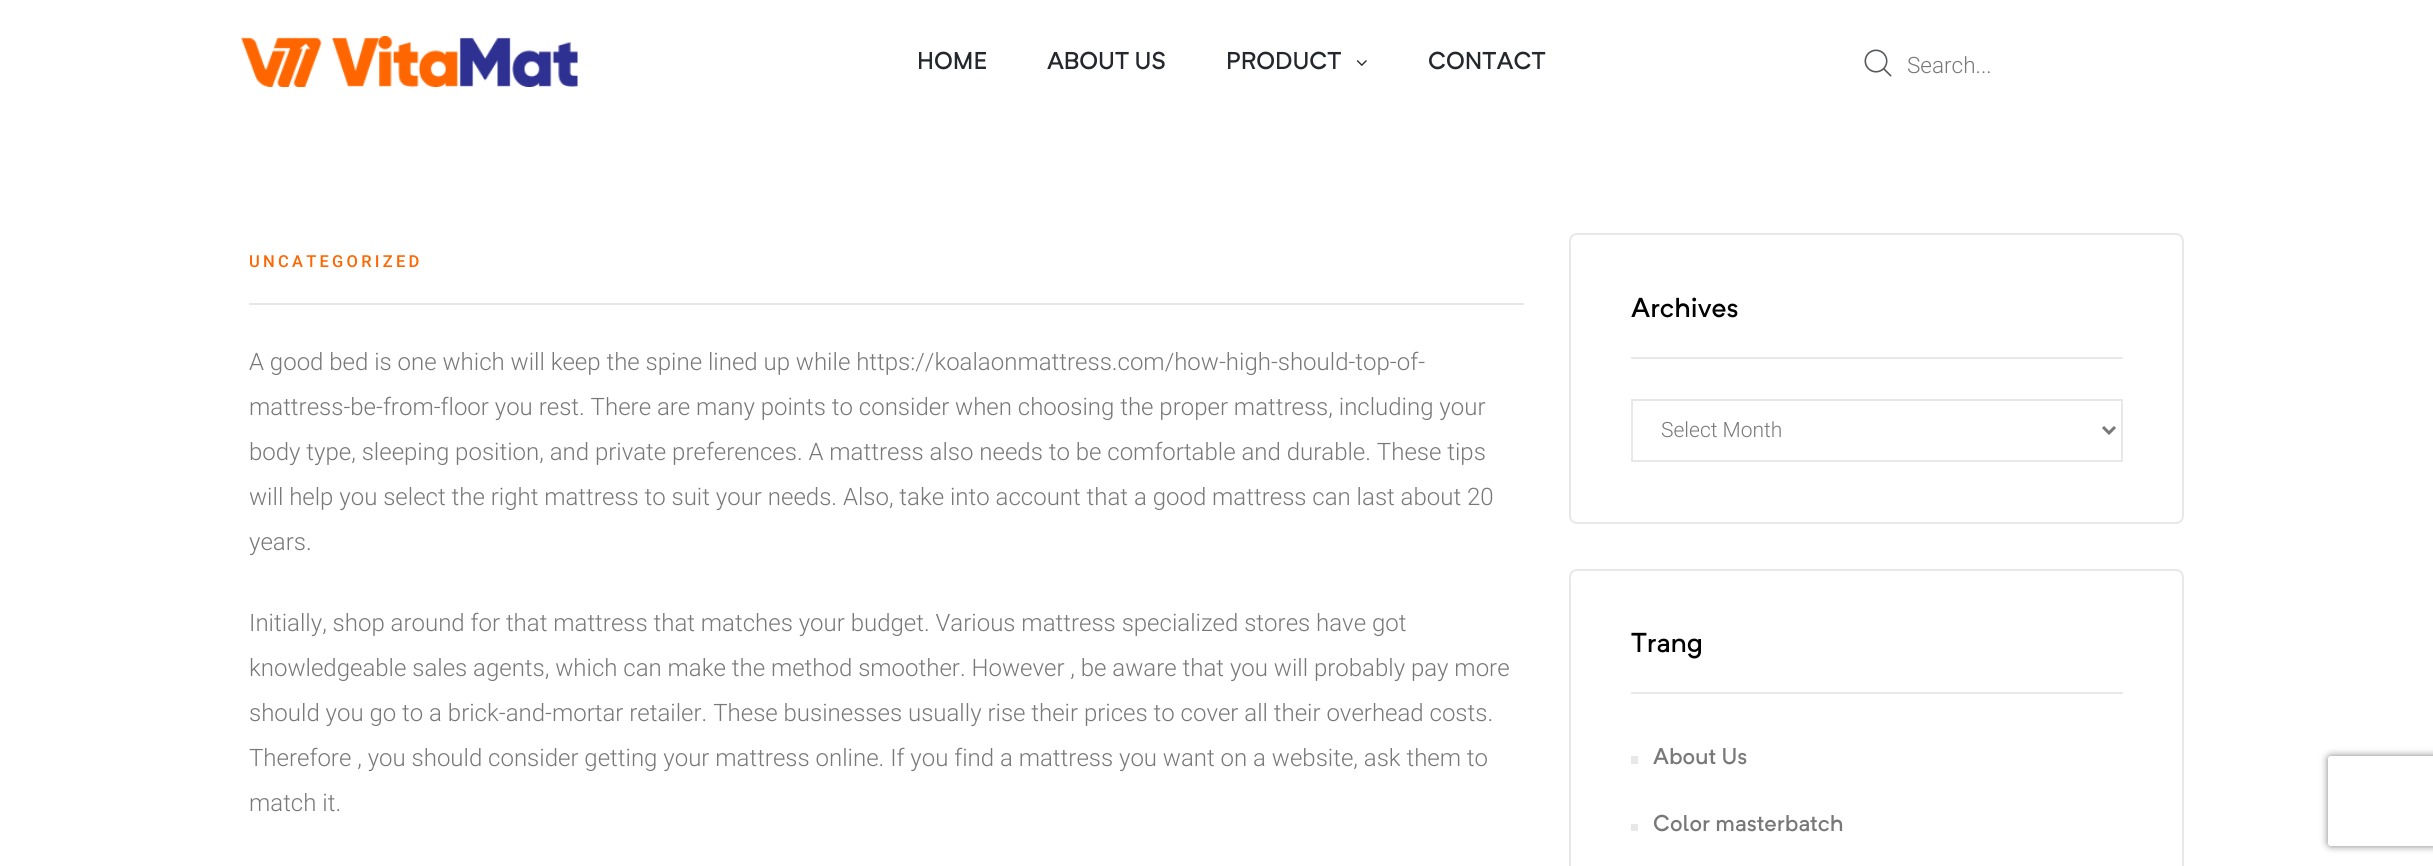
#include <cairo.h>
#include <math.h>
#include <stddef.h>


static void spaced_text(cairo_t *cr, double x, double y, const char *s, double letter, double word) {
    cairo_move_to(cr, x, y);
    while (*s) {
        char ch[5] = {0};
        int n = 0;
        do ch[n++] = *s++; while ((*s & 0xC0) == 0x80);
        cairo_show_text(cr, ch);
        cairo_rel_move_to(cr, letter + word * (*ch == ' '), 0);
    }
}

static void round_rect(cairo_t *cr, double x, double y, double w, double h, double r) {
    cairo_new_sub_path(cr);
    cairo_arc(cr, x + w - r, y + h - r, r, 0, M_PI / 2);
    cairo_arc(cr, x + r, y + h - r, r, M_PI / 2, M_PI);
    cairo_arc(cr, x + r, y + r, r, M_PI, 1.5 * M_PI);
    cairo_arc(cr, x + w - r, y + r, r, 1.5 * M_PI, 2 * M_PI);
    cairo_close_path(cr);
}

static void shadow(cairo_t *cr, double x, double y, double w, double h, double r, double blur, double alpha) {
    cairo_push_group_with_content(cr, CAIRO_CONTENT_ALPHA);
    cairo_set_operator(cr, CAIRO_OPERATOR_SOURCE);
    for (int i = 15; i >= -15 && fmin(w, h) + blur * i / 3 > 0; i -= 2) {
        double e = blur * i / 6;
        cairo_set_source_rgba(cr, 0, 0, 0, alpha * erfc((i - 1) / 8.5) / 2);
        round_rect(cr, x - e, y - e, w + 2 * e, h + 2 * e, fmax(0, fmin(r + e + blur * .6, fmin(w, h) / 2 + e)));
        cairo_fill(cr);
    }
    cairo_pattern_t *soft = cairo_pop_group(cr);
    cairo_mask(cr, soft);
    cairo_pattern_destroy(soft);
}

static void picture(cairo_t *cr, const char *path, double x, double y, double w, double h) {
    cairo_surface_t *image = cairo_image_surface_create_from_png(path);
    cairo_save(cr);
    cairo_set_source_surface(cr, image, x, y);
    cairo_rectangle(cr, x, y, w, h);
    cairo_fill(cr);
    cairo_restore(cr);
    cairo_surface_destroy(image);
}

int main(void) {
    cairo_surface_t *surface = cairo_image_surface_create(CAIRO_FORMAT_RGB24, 2433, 866);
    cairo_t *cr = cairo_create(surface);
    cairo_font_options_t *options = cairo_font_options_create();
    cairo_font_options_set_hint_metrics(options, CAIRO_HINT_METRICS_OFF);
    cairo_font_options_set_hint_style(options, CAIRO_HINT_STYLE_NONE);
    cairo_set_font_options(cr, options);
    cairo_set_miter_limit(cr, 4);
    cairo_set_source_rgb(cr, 1, 1, 1);
    cairo_paint(cr);
    picture(cr, "img1.png", 241, 36, 337, 51);
    cairo_select_font_face(cr, "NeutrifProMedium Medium", CAIRO_FONT_SLANT_NORMAL, CAIRO_FONT_WEIGHT_NORMAL);
    cairo_set_font_size(cr, 24);
    cairo_set_source_rgb(cr, 0.141, 0.157, 0.176);
    cairo_move_to(cr, 917, 69);
    cairo_show_text(cr, "HOME");
    cairo_move_to(cr, 1047, 69);
    cairo_show_text(cr, "ABOUT US");
    cairo_move_to(cr, 1226, 69);
    cairo_show_text(cr, "PRODUCT");
    picture(cr, "img2.png", 1356, 60, 11, 6);
    cairo_move_to(cr, 1428, 69);
    cairo_show_text(cr, "CONTACT");
    picture(cr, "img3.png", 1864, 49, 28, 28);
    cairo_select_font_face(cr, "Roboto Light", CAIRO_FONT_SLANT_NORMAL, CAIRO_FONT_WEIGHT_NORMAL);
    cairo_set_font_size(cr, 22.5);
    cairo_set_source_rgb(cr, 0.471, 0.471, 0.471);
    cairo_move_to(cr, 1907, 73);
    cairo_show_text(cr, "Search...");
    cairo_set_source_rgb(cr, 0.91, 0.91, 0.91);
    cairo_rectangle(cr, 249, 303, 1275, 2);
    cairo_fill(cr);
    cairo_select_font_face(cr, "Roboto Medium", CAIRO_FONT_SLANT_NORMAL, CAIRO_FONT_WEIGHT_NORMAL);
    cairo_set_font_size(cr, 16.5);
    cairo_set_source_rgb(cr, 1, 0.4, 0);
    spaced_text(cr, 249, 267, "UNCATEGORIZED", 3.25, 0);
    cairo_select_font_face(cr, "Roboto Light", CAIRO_FONT_SLANT_NORMAL, CAIRO_FONT_WEIGHT_NORMAL);
    cairo_set_font_size(cr, 24);
    cairo_set_source_rgb(cr, 0.471, 0.471, 0.471);
    cairo_move_to(cr, 249, 370);
    cairo_show_text(cr, "A good bed is one which will keep the spine lined up while https://koalaonmattress.com/how-high-should-top-of-");
    cairo_move_to(cr, 249, 415);
    cairo_show_text(cr, "mattress-be-from-floor you rest. There are many points to consider when choosing the proper mattress, including your");
    cairo_move_to(cr, 249, 460);
    cairo_show_text(cr, "body type, sleeping position, and private preferences. A mattress also needs to be comfortable and durable. These tips");
    cairo_move_to(cr, 249, 505);
    cairo_show_text(cr, "will help you select the right mattress to suit your needs. Also, take into account that a good mattress can last about 20");
    cairo_move_to(cr, 249, 550);
    cairo_show_text(cr, "years.");
    cairo_move_to(cr, 249, 631);
    cairo_show_text(cr, "Initially, shop around for that mattress that matches your budget. Various mattress specialized stores have got");
    cairo_move_to(cr, 249, 676);
    cairo_show_text(cr, "knowledgeable sales agents, which can make the method smoother. However , be aware that you will probably pay more");
    cairo_move_to(cr, 249, 721);
    cairo_show_text(cr, "should you go to a brick-and-mortar retailer. These businesses usually rise their prices to cover all their overhead costs.");
    cairo_move_to(cr, 249, 766);
    cairo_show_text(cr, "Therefore , you should consider getting your mattress online. If you find a mattress you want on a website, ask them to");
    cairo_move_to(cr, 249, 811);
    cairo_show_text(cr, "match it.");
    round_rect(cr, 1570, 234, 613, 289, 7);
    cairo_set_source_rgb(cr, 0.91, 0.91, 0.91);
    cairo_stroke(cr);
    cairo_rectangle(cr, 1631, 357, 492, 2);
    cairo_fill(cr);
    cairo_select_font_face(cr, "NeutrifProMedium Medium", CAIRO_FONT_SLANT_NORMAL, CAIRO_FONT_WEIGHT_NORMAL);
    cairo_set_font_size(cr, 27);
    cairo_set_source_rgb(cr, 0, 0, 0);
    cairo_move_to(cr, 1631, 317);
    cairo_show_text(cr, "Archives");
    cairo_rectangle(cr, 1632, 400, 490, 61);
    cairo_set_source_rgb(cr, 0.91, 0.91, 0.91);
    cairo_stroke(cr);
    cairo_new_path(cr);
    cairo_move_to(cr, 2103, 427);
    cairo_line_to(cr, 2109, 433);
    cairo_line_to(cr, 2115, 427);
    cairo_set_source_rgb(cr, 0.471, 0.471, 0.471);
    cairo_set_line_width(cr, 3);
    cairo_stroke(cr);
    cairo_select_font_face(cr, "Roboto Light", CAIRO_FONT_SLANT_NORMAL, CAIRO_FONT_WEIGHT_NORMAL);
    cairo_set_font_size(cr, 21);
    cairo_move_to(cr, 1661, 437);
    cairo_show_text(cr, "Select Month");
    round_rect(cr, 1570, 570, 613, 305, 7);
    cairo_set_source_rgb(cr, 0.91, 0.91, 0.91);
    cairo_set_line_width(cr, 2);
    cairo_stroke(cr);
    cairo_rectangle(cr, 1631, 692, 492, 2);
    cairo_fill(cr);
    cairo_select_font_face(cr, "NeutrifProMedium Medium", CAIRO_FONT_SLANT_NORMAL, CAIRO_FONT_WEIGHT_NORMAL);
    cairo_set_font_size(cr, 27);
    cairo_set_source_rgb(cr, 0, 0, 0);
    cairo_move_to(cr, 1631, 652);
    cairo_show_text(cr, "Trang");
    cairo_set_source_rgb(cr, 0.91, 0.91, 0.91);
    cairo_rectangle(cr, 1631, 756, 7, 8);
    cairo_fill(cr);
    cairo_set_font_size(cr, 22.5);
    cairo_set_source_rgb(cr, 0.471, 0.471, 0.471);
    cairo_move_to(cr, 1653, 764);
    cairo_show_text(cr, "About Us");
    cairo_set_source_rgb(cr, 0.91, 0.91, 0.91);
    cairo_rectangle(cr, 1631, 824, 7, 7);
    cairo_fill(cr);
    cairo_set_source_rgb(cr, 0.471, 0.471, 0.471);
    cairo_move_to(cr, 1653, 831);
    cairo_show_text(cr, "Color masterbatch");
    cairo_save(cr);
    cairo_set_fill_rule(cr, CAIRO_FILL_RULE_EVEN_ODD);
    cairo_new_path(cr);
    cairo_move_to(cr, 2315, 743);
    cairo_line_to(cr, 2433, 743);
    cairo_line_to(cr, 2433, 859);
    cairo_line_to(cr, 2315, 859);
    cairo_close_path(cr);
    cairo_move_to(cr, 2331, 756);
    cairo_line_to(cr, 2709, 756);
    cairo_curve_to(cr, 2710.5, 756, 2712, 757.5, 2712, 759);
    cairo_line_to(cr, 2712, 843);
    cairo_curve_to(cr, 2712, 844.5, 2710.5, 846, 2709, 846);
    cairo_line_to(cr, 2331, 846);
    cairo_curve_to(cr, 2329.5, 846, 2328, 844.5, 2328, 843);
    cairo_line_to(cr, 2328, 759);
    cairo_curve_to(cr, 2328, 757.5, 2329.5, 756, 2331, 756);
    cairo_close_path(cr);
    cairo_clip(cr);
    cairo_set_source_rgb(cr, 0.502, 0.502, 0.502);
    shadow(cr, 2328, 756, 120, 90, 3, 4, 1);
    cairo_restore(cr);
    cairo_surface_write_to_png(surface, "page.png");
    cairo_font_options_destroy(options);
    cairo_destroy(cr);
    cairo_surface_destroy(surface);
    return 0;
}
